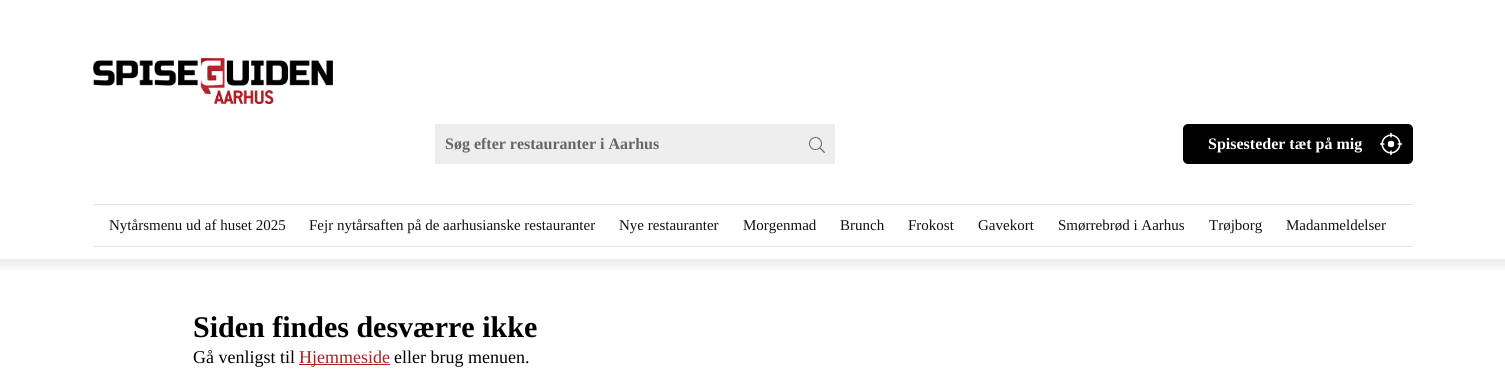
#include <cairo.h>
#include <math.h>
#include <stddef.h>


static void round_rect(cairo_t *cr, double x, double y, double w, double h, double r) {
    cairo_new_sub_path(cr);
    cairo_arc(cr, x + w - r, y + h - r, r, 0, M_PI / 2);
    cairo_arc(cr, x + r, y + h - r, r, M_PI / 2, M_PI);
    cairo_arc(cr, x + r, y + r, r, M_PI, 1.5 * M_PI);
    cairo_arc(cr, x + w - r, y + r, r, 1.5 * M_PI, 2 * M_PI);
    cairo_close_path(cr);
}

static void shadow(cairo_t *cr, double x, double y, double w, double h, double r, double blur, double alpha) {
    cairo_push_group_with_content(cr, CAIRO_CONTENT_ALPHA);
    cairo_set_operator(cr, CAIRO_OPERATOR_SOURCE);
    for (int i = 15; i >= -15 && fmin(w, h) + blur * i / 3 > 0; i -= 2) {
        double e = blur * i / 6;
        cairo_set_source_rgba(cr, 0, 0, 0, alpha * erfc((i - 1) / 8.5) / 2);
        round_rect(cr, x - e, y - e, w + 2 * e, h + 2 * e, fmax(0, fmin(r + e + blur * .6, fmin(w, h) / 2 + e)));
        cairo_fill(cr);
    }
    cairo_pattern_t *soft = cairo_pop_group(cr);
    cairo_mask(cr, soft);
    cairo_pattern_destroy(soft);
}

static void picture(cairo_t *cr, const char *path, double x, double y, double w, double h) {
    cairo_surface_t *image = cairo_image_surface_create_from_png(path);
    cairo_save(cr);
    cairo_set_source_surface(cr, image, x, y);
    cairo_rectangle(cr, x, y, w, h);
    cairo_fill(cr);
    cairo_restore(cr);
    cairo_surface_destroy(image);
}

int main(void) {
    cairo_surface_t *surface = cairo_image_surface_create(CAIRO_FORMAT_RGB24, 1505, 380);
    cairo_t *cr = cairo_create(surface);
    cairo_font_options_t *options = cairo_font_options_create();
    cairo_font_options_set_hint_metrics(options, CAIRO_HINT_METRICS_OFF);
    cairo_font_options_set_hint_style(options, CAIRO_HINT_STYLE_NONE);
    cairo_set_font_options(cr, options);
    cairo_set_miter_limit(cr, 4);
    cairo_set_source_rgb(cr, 1, 1, 1);
    cairo_paint(cr);
    cairo_save(cr);
    cairo_rectangle(cr, 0, 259, 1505, 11);
    cairo_clip(cr);
    cairo_set_source_rgb(cr, 0, 0, 0);
    shadow(cr, -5, -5, 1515, 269, 0, 7.5, 0.1);
    cairo_restore(cr);
    picture(cr, "img1.png", 93, 58, 240, 46);
    cairo_set_source_rgb(cr, 0.933, 0.933, 0.933);
    cairo_rectangle(cr, 435, 124, 400, 40);
    cairo_fill(cr);
    cairo_select_font_face(cr, "Liberation Serif", CAIRO_FONT_SLANT_NORMAL, CAIRO_FONT_WEIGHT_BOLD);
    cairo_set_font_size(cr, 16);
    cairo_set_source_rgb(cr, 0.4, 0.4, 0.4);
    cairo_move_to(cr, 445, 149);
    cairo_show_text(cr, "Søg efter restauranter i Aarhus");
    picture(cr, "img2.png", 809, 137, 16, 16);
    cairo_set_source_rgb(cr, 0.004, 0.004, 0.004);
    round_rect(cr, 1183, 124, 230, 40, 5);
    cairo_fill(cr);
    cairo_set_source_rgb(cr, 1, 1, 1);
    cairo_move_to(cr, 1208, 149);
    cairo_show_text(cr, "Spisesteder tæt på mig");
    picture(cr, "img3.png", 1379, 132, 24, 24);
    cairo_set_source_rgb(cr, 0.898, 0.898, 0.898);
    cairo_rectangle(cr, 93, 204, 1320, 1);
    cairo_fill(cr);
    cairo_rectangle(cr, 93, 246, 1320, 1);
    cairo_fill(cr);
    cairo_select_font_face(cr, "Liberation Serif", CAIRO_FONT_SLANT_NORMAL, CAIRO_FONT_WEIGHT_NORMAL);
    cairo_set_font_size(cr, 15);
    cairo_set_source_rgb(cr, 0.067, 0.067, 0.067);
    cairo_move_to(cr, 109, 230);
    cairo_show_text(cr, "Nytårsmenu ud af huset 2025");
    cairo_move_to(cr, 309, 230);
    cairo_show_text(cr, "Fejr nytårsaften på de aarhusianske restauranter");
    cairo_move_to(cr, 619, 230);
    cairo_show_text(cr, "Nye restauranter");
    cairo_move_to(cr, 743, 230);
    cairo_show_text(cr, "Morgenmad");
    cairo_move_to(cr, 840, 230);
    cairo_show_text(cr, "Brunch");
    cairo_move_to(cr, 908, 230);
    cairo_show_text(cr, "Frokost");
    cairo_move_to(cr, 978, 230);
    cairo_show_text(cr, "Gavekort");
    cairo_move_to(cr, 1058, 230);
    cairo_show_text(cr, "Smørrebrød i Aarhus");
    cairo_move_to(cr, 1209, 230);
    cairo_show_text(cr, "Trøjborg");
    cairo_move_to(cr, 1286, 230);
    cairo_show_text(cr, "Madanmeldelser");
    cairo_select_font_face(cr, "Liberation Serif", CAIRO_FONT_SLANT_NORMAL, CAIRO_FONT_WEIGHT_BOLD);
    cairo_set_font_size(cr, 30);
    cairo_set_source_rgb(cr, 0, 0, 0);
    cairo_move_to(cr, 193, 337);
    cairo_show_text(cr, "Siden findes desværre ikke");
    cairo_select_font_face(cr, "Liberation Serif", CAIRO_FONT_SLANT_NORMAL, CAIRO_FONT_WEIGHT_NORMAL);
    cairo_set_font_size(cr, 18);
    cairo_move_to(cr, 193, 363);
    cairo_show_text(cr, "Gå venligst til");
    cairo_set_source_rgb(cr, 0.686, 0.118, 0.137);
    cairo_rectangle(cr, 299, 364, 91, 1);
    cairo_fill(cr);
    cairo_move_to(cr, 299, 363);
    cairo_show_text(cr, "Hjemmeside");
    cairo_set_source_rgb(cr, 0, 0, 0);
    cairo_move_to(cr, 394, 363);
    cairo_show_text(cr, "eller brug menuen.");
    cairo_surface_write_to_png(surface, "page.png");
    cairo_font_options_destroy(options);
    cairo_destroy(cr);
    cairo_surface_destroy(surface);
    return 0;
}
